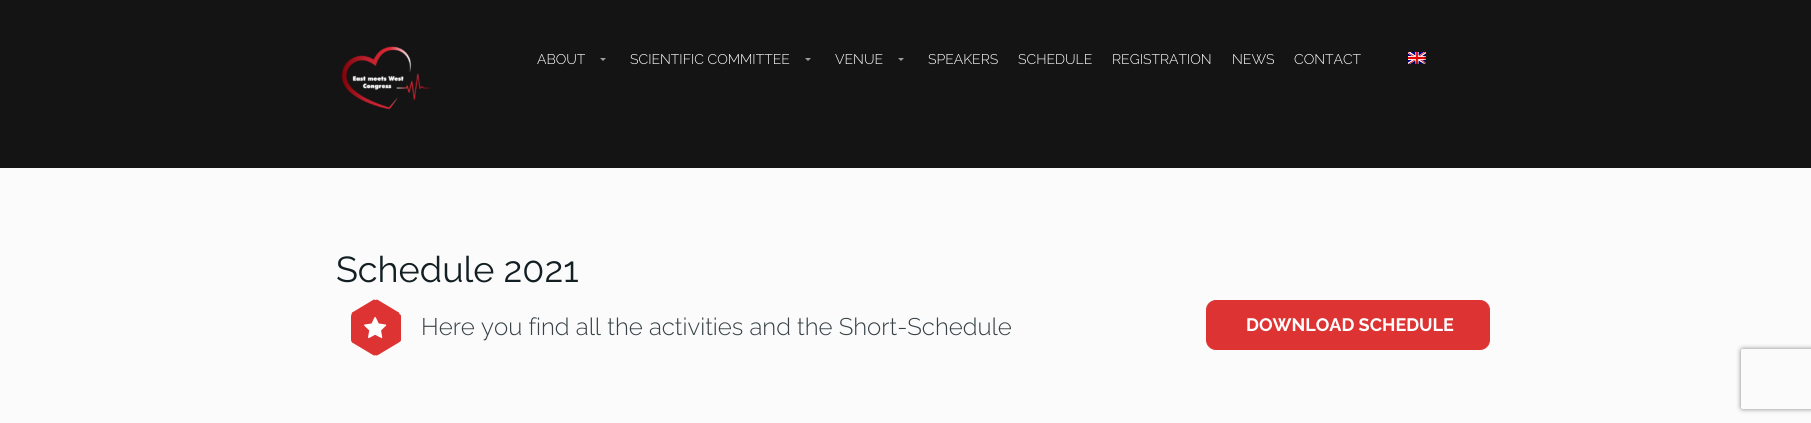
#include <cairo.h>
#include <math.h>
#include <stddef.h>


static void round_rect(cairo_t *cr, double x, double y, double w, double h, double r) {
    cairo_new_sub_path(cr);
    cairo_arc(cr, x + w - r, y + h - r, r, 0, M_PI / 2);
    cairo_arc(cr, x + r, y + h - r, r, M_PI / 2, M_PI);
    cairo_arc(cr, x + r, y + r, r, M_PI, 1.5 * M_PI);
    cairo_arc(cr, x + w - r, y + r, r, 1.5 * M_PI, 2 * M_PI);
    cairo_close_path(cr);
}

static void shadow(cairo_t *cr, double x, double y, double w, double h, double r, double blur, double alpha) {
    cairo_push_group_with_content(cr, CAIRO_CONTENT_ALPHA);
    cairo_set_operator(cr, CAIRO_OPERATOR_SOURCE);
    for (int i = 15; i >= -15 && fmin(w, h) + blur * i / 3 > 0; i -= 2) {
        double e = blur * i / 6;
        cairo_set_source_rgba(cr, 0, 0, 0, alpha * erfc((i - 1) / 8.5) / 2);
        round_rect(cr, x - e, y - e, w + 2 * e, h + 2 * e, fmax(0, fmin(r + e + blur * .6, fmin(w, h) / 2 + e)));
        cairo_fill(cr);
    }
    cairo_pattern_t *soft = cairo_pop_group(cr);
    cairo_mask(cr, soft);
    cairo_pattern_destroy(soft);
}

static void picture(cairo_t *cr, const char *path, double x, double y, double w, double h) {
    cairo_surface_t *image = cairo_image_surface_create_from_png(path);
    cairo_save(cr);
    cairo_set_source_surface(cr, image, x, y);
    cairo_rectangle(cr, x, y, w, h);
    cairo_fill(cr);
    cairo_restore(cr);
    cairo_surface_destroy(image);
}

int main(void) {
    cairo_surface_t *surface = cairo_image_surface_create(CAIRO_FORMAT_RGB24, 1811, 423);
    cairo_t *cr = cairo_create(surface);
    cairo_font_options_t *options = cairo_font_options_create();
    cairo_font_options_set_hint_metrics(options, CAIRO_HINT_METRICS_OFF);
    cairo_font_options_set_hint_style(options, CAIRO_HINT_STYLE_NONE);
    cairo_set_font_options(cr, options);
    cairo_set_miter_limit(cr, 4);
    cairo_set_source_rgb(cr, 0.984, 0.984, 0.984);
    cairo_paint(cr);
    cairo_set_source_rgb(cr, 0.082, 0.082, 0.082);
    cairo_rectangle(cr, 0, 0, 1811, 168);
    cairo_fill(cr);
    picture(cr, "img1.png", 341, 46, 89, 64);
    cairo_select_font_face(cr, "Raleway Light", CAIRO_FONT_SLANT_NORMAL, CAIRO_FONT_WEIGHT_NORMAL);
    cairo_set_font_size(cr, 14);
    cairo_set_source_rgb(cr, 1, 1, 1);
    cairo_move_to(cr, 537, 64);
    cairo_show_text(cr, "ABOUT");
    cairo_set_source_rgb(cr, 0.62, 0.62, 0.62);
    cairo_new_path(cr);
    cairo_move_to(cr, 600, 58);
    cairo_line_to(cr, 606, 58);
    cairo_line_to(cr, 603, 61);
    cairo_close_path(cr);
    cairo_fill(cr);
    cairo_set_source_rgb(cr, 1, 1, 1);
    cairo_move_to(cr, 630, 64);
    cairo_show_text(cr, "SCIENTIFIC COMMITTEE");
    cairo_set_source_rgb(cr, 0.62, 0.62, 0.62);
    cairo_new_path(cr);
    cairo_move_to(cr, 805, 58);
    cairo_line_to(cr, 811, 58);
    cairo_line_to(cr, 808, 61);
    cairo_close_path(cr);
    cairo_fill(cr);
    cairo_set_source_rgb(cr, 1, 1, 1);
    cairo_move_to(cr, 835, 64);
    cairo_show_text(cr, "VENUE");
    cairo_set_source_rgb(cr, 0.62, 0.62, 0.62);
    cairo_new_path(cr);
    cairo_move_to(cr, 898, 58);
    cairo_line_to(cr, 904, 58);
    cairo_line_to(cr, 901, 61);
    cairo_close_path(cr);
    cairo_fill(cr);
    cairo_set_source_rgb(cr, 1, 1, 1);
    cairo_move_to(cr, 928, 64);
    cairo_show_text(cr, "SPEAKERS");
    cairo_move_to(cr, 1018, 64);
    cairo_show_text(cr, "SCHEDULE");
    cairo_move_to(cr, 1112, 64);
    cairo_show_text(cr, "REGISTRATION");
    cairo_move_to(cr, 1232, 64);
    cairo_show_text(cr, "NEWS");
    cairo_move_to(cr, 1294, 64);
    cairo_show_text(cr, "CONTACT");
    picture(cr, "img2.png", 1408, 52, 18, 12);
    cairo_select_font_face(cr, "Raleway", CAIRO_FONT_SLANT_NORMAL, CAIRO_FONT_WEIGHT_NORMAL);
    cairo_set_font_size(cr, 36);
    cairo_set_source_rgb(cr, 0.078, 0.122, 0.137);
    cairo_move_to(cr, 336, 282);
    cairo_show_text(cr, "Schedule 2021");
    cairo_set_source_rgb(cr, 0.867, 0.2, 0.2);
    round_rect(cr, 351, 314, 50, 28, 2);
    cairo_fill(cr);
    cairo_new_path(cr);
    cairo_move_to(cr, 376, 301);
    cairo_line_to(cr, 399, 341);
    cairo_curve_to(cr, 400, 341, 399, 343, 398, 343);
    cairo_line_to(cr, 378, 355);
    cairo_curve_to(cr, 377, 356, 375, 355, 375, 355);
    cairo_line_to(cr, 352, 315);
    cairo_curve_to(cr, 351, 314, 352, 312, 353, 312);
    cairo_line_to(cr, 373, 300);
    cairo_curve_to(cr, 374, 299, 376, 300, 376, 301);
    cairo_close_path(cr);
    cairo_fill(cr);
    cairo_new_path(cr);
    cairo_move_to(cr, 352, 341);
    cairo_line_to(cr, 375, 301);
    cairo_curve_to(cr, 375, 300, 377, 299, 378, 300);
    cairo_line_to(cr, 398, 312);
    cairo_curve_to(cr, 399, 312, 400, 314, 399, 315);
    cairo_line_to(cr, 376, 355);
    cairo_curve_to(cr, 376, 355, 374, 356, 373, 355);
    cairo_line_to(cr, 353, 343);
    cairo_curve_to(cr, 352, 343, 351, 341, 352, 341);
    cairo_close_path(cr);
    cairo_fill(cr);
    picture(cr, "img3.png", 364, 316, 23, 23);
    cairo_select_font_face(cr, "Raleway Light", CAIRO_FONT_SLANT_NORMAL, CAIRO_FONT_WEIGHT_NORMAL);
    cairo_set_font_size(cr, 24);
    cairo_set_source_rgb(cr, 0.216, 0.255, 0.275);
    cairo_move_to(cr, 421, 335);
    cairo_show_text(cr, "Here you find all the activities and the Short-Schedule");
    cairo_set_source_rgb(cr, 0.867, 0.2, 0.2);
    round_rect(cr, 1206.5, 300.5, 283, 49, 9.5);
    cairo_fill_preserve(cr);
    cairo_set_line_width(cr, 1);
    cairo_stroke(cr);
    cairo_select_font_face(cr, "Raleway", CAIRO_FONT_SLANT_NORMAL, CAIRO_FONT_WEIGHT_BOLD);
    cairo_set_font_size(cr, 18);
    cairo_set_source_rgb(cr, 1, 1, 1);
    cairo_move_to(cr, 1246, 331);
    cairo_show_text(cr, "DOWNLOAD SCHEDULE");
    cairo_save(cr);
    cairo_set_fill_rule(cr, CAIRO_FILL_RULE_EVEN_ODD);
    cairo_new_path(cr);
    cairo_move_to(cr, 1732, 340);
    cairo_line_to(cr, 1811, 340);
    cairo_line_to(cr, 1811, 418);
    cairo_line_to(cr, 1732, 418);
    cairo_close_path(cr);
    cairo_move_to(cr, 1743, 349);
    cairo_line_to(cr, 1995, 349);
    cairo_curve_to(cr, 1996, 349, 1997, 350, 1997, 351);
    cairo_line_to(cr, 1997, 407);
    cairo_curve_to(cr, 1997, 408, 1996, 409, 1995, 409);
    cairo_line_to(cr, 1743, 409);
    cairo_curve_to(cr, 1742, 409, 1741, 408, 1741, 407);
    cairo_line_to(cr, 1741, 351);
    cairo_curve_to(cr, 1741, 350, 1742, 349, 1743, 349);
    cairo_close_path(cr);
    cairo_clip(cr);
    cairo_set_source_rgb(cr, 0.502, 0.502, 0.502);
    shadow(cr, 1741, 349, 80, 60, 2, 2.5, 1);
    cairo_restore(cr);
    cairo_surface_write_to_png(surface, "page.png");
    cairo_font_options_destroy(options);
    cairo_destroy(cr);
    cairo_surface_destroy(surface);
    return 0;
}
